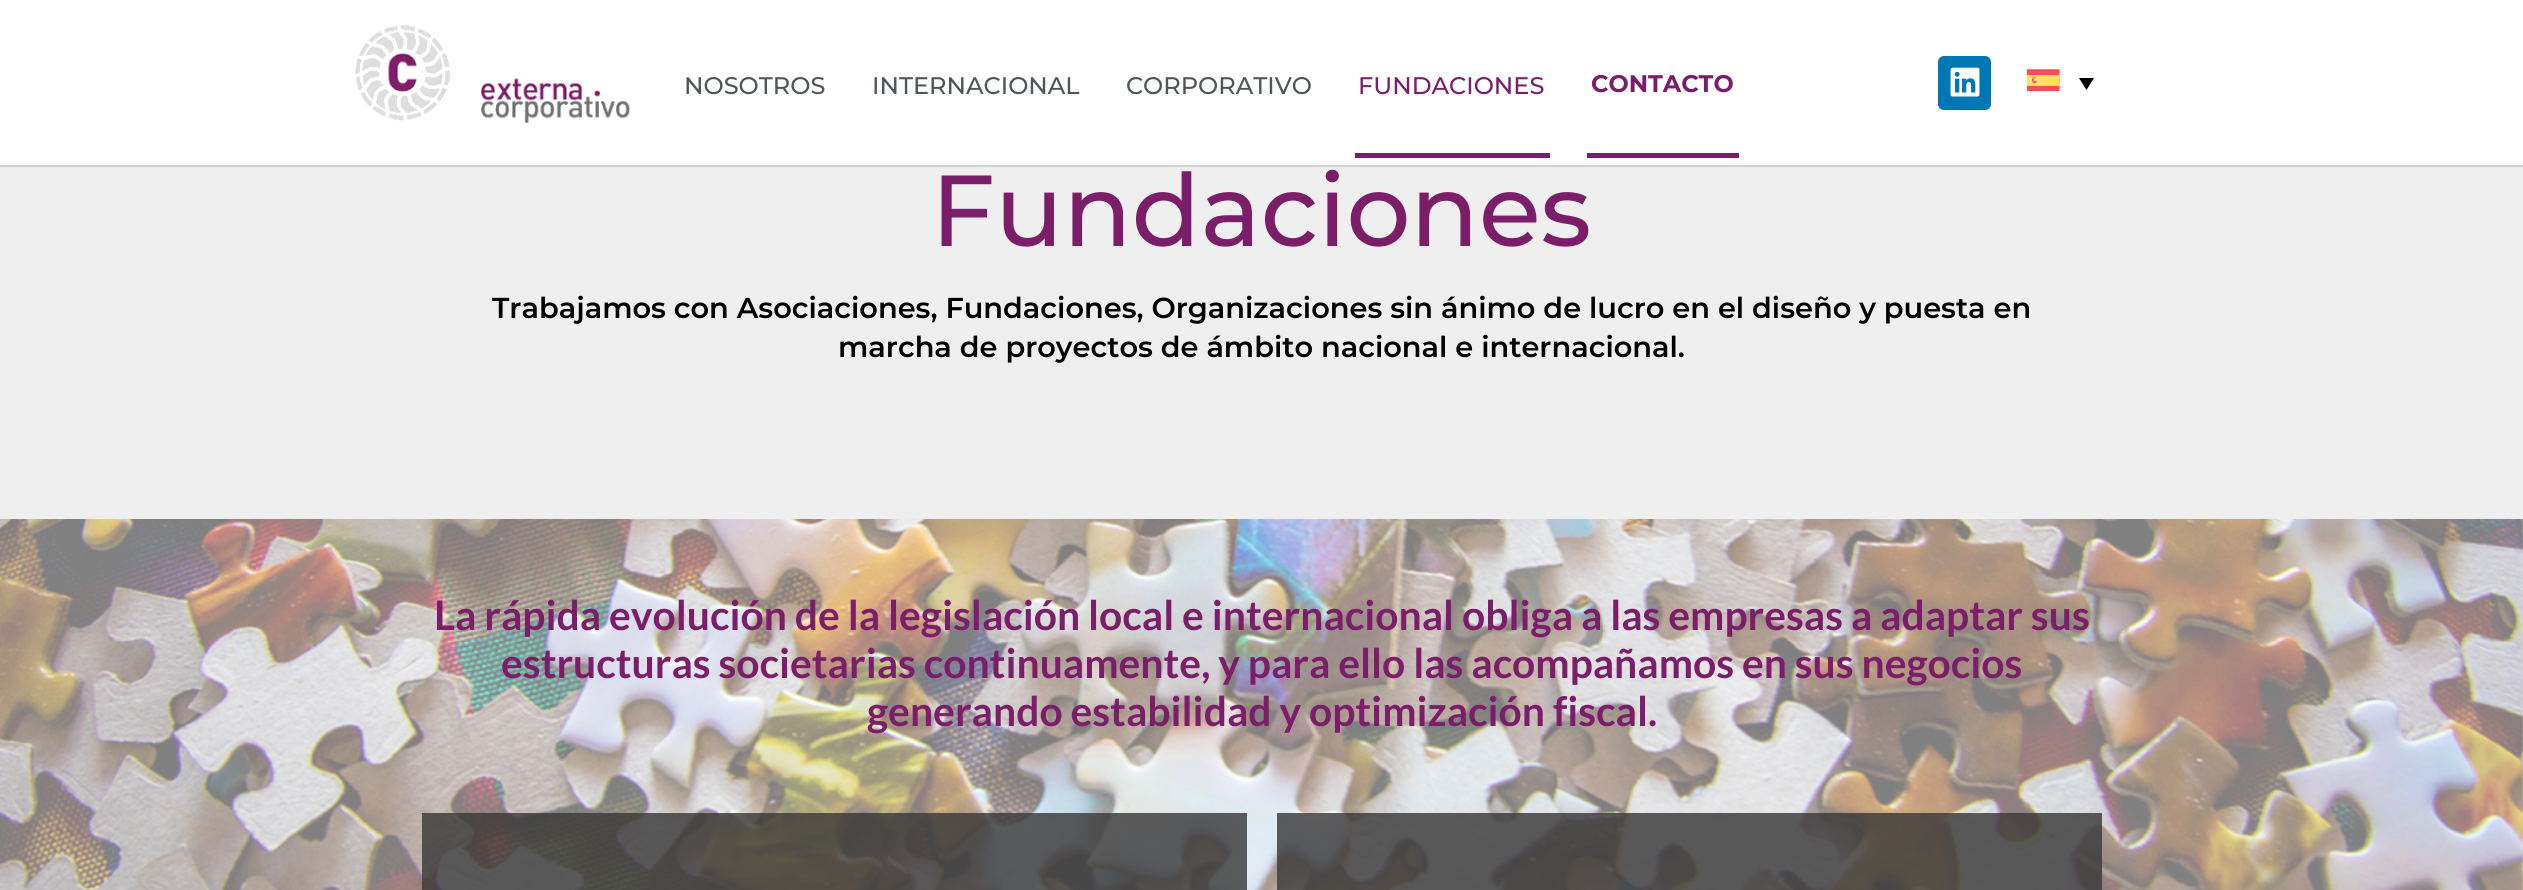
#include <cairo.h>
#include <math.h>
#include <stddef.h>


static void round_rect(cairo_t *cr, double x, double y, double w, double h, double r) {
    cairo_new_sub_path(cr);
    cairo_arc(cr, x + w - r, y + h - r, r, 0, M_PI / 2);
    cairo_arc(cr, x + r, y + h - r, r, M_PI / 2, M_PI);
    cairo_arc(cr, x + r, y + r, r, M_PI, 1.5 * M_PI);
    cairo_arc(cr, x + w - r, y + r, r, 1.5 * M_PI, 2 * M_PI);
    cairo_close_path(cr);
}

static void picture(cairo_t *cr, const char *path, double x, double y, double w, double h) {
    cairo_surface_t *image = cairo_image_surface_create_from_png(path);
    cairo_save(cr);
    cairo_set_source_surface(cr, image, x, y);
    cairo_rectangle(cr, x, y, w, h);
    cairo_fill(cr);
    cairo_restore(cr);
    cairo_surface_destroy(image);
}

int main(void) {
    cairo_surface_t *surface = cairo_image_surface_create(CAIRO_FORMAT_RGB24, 2523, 890);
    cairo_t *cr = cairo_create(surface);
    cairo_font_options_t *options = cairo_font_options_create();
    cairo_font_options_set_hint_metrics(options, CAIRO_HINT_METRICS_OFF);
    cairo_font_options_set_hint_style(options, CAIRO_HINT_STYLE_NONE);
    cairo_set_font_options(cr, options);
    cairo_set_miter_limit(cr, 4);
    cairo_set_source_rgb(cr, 1, 1, 1);
    cairo_paint(cr);
    cairo_set_source_rgb(cr, 0.827, 0.827, 0.827);
    cairo_rectangle(cr, 0, 165, 2523, 2);
    cairo_fill(cr);
    picture(cr, "img1.png", 355, 25, 275, 99);
    cairo_select_font_face(cr, "Montserrat Medium", CAIRO_FONT_SLANT_NORMAL, CAIRO_FONT_WEIGHT_NORMAL);
    cairo_set_font_size(cr, 24);
    cairo_set_source_rgb(cr, 0.314, 0.333, 0.345);
    cairo_move_to(cr, 684, 94);
    cairo_show_text(cr, "NOSOTROS");
    cairo_move_to(cr, 872, 94);
    cairo_show_text(cr, "INTERNACIONAL");
    cairo_move_to(cr, 1126, 94);
    cairo_show_text(cr, "CORPORATIVO");
    cairo_set_source_rgb(cr, 0.486, 0.114, 0.416);
    cairo_move_to(cr, 1358, 94);
    cairo_show_text(cr, "FUNDACIONES");
    cairo_rectangle(cr, 1355, 153, 195, 5);
    cairo_fill(cr);
    cairo_rectangle(cr, 1587, 153, 152, 5);
    cairo_fill(cr);
    cairo_select_font_face(cr, "Montserrat", CAIRO_FONT_SLANT_NORMAL, CAIRO_FONT_WEIGHT_BOLD);
    cairo_move_to(cr, 1591, 92);
    cairo_show_text(cr, "CONTACTO");
    cairo_set_source_rgb(cr, 0, 0.467, 0.71);
    round_rect(cr, 1938, 56, 53, 54, 6);
    cairo_fill(cr);
    picture(cr, "img2.png", 1950, 67, 30, 30);
    picture(cr, "img3.png", 2027, 69, 33, 22);
    cairo_set_source_rgb(cr, 0, 0, 0);
    cairo_new_path(cr);
    cairo_move_to(cr, 2079, 78);
    cairo_line_to(cr, 2094, 78);
    cairo_line_to(cr, 2086.5, 90);
    cairo_close_path(cr);
    cairo_fill(cr);
    cairo_set_source_rgb(cr, 0.937, 0.937, 0.937);
    cairo_rectangle(cr, 0, 167, 2523, 352);
    cairo_fill(cr);
    cairo_select_font_face(cr, "Montserrat Medium", CAIRO_FONT_SLANT_NORMAL, CAIRO_FONT_WEIGHT_NORMAL);
    cairo_set_font_size(cr, 100.75);
    cairo_set_source_rgb(cr, 0.486, 0.114, 0.416);
    cairo_move_to(cr, 931, 246);
    cairo_show_text(cr, "Fundaciones");
    cairo_select_font_face(cr, "Montserrat SemiBold", CAIRO_FONT_SLANT_NORMAL, CAIRO_FONT_WEIGHT_NORMAL);
    cairo_set_font_size(cr, 28.8);
    cairo_set_source_rgb(cr, 0, 0, 0);
    cairo_move_to(cr, 492, 318);
    cairo_show_text(cr, "Trabajamos con Asociaciones, Fundaciones, Organizaciones sin ánimo de lucro en el diseño y puesta en");
    cairo_move_to(cr, 838, 357);
    cairo_show_text(cr, "marcha de proyectos de ámbito nacional e internacional.");
    picture(cr, "img4.png", 0, 519, 2523, 371);
    cairo_select_font_face(cr, "Lato", CAIRO_FONT_SLANT_NORMAL, CAIRO_FONT_WEIGHT_BOLD);
    cairo_set_font_size(cr, 40.8);
    cairo_set_source_rgb(cr, 0.486, 0.114, 0.416);
    cairo_move_to(cr, 434, 630);
    cairo_show_text(cr, "La rápida evolución de la legislación local e internacional obliga a las empresas a adaptar sus");
    cairo_move_to(cr, 501, 678);
    cairo_show_text(cr, "estructuras societarias continuamente, y para ello las acompañamos en sus negocios");
    cairo_move_to(cr, 867, 726);
    cairo_show_text(cr, "generando estabilidad y optimización fiscal.");
    cairo_set_source_rgba(cr, 0.231, 0.224, 0.224, 0.82);
    cairo_rectangle(cr, 422, 813, 825, 77);
    cairo_fill(cr);
    cairo_rectangle(cr, 1277, 813, 825, 77);
    cairo_fill(cr);
    cairo_surface_write_to_png(surface, "page.png");
    cairo_font_options_destroy(options);
    cairo_destroy(cr);
    cairo_surface_destroy(surface);
    return 0;
}
